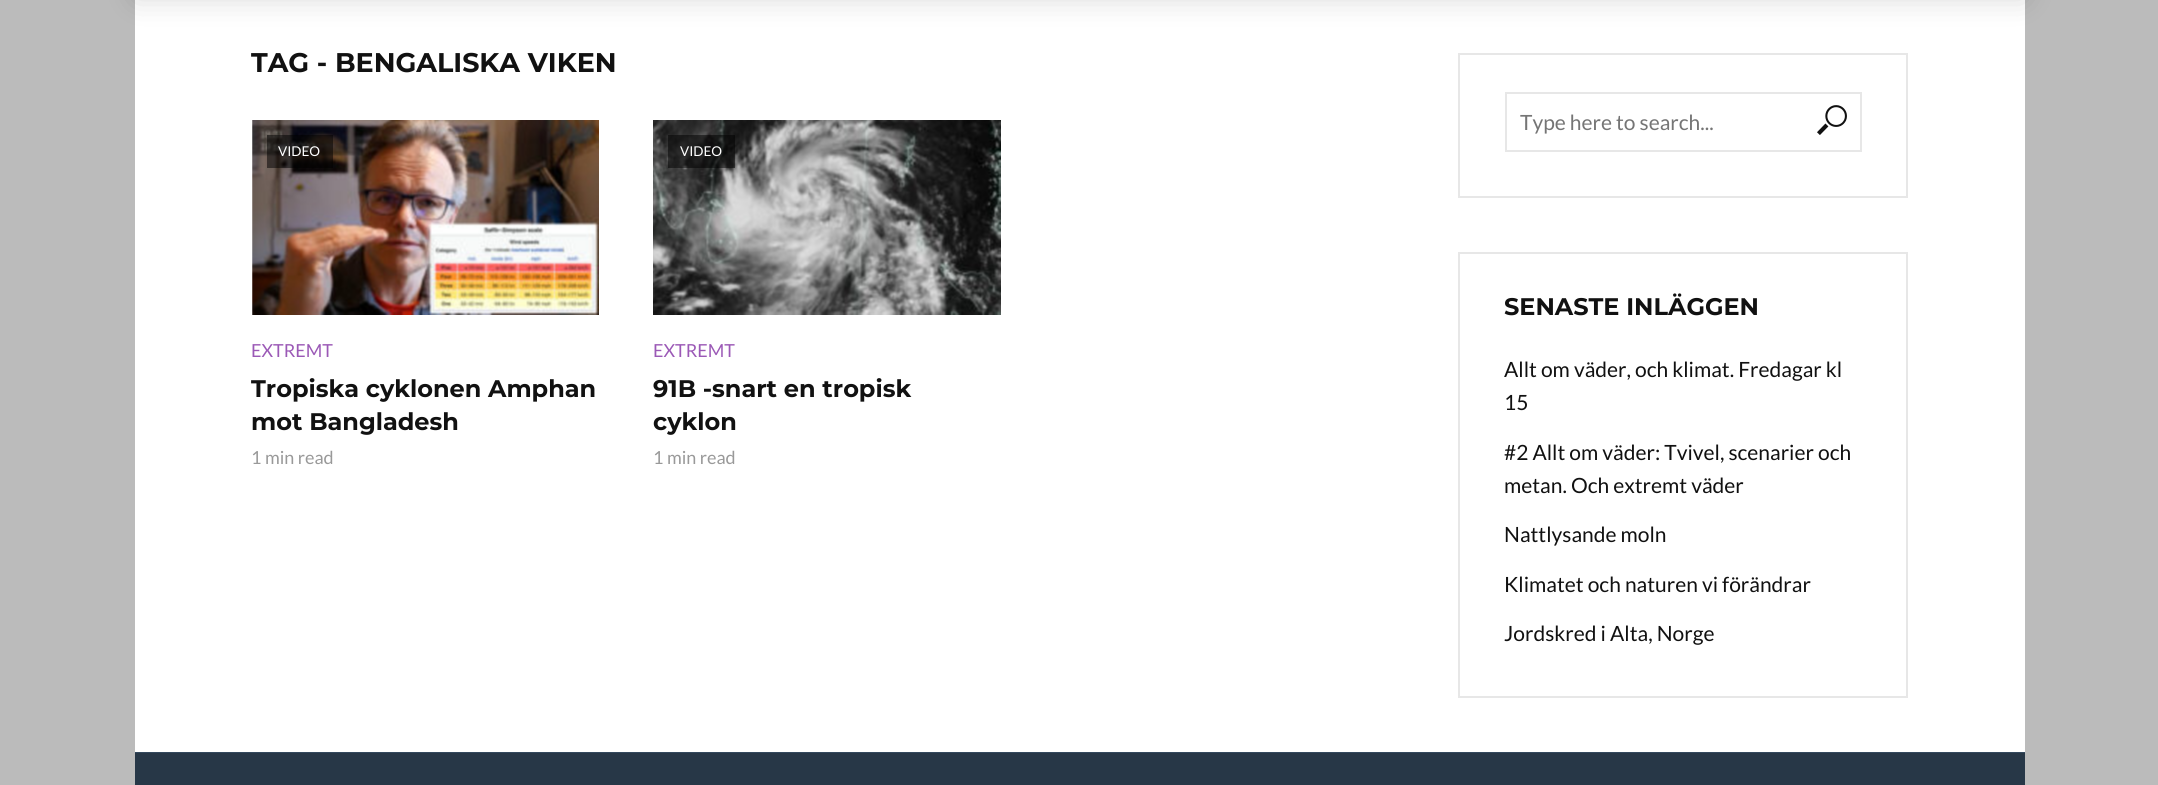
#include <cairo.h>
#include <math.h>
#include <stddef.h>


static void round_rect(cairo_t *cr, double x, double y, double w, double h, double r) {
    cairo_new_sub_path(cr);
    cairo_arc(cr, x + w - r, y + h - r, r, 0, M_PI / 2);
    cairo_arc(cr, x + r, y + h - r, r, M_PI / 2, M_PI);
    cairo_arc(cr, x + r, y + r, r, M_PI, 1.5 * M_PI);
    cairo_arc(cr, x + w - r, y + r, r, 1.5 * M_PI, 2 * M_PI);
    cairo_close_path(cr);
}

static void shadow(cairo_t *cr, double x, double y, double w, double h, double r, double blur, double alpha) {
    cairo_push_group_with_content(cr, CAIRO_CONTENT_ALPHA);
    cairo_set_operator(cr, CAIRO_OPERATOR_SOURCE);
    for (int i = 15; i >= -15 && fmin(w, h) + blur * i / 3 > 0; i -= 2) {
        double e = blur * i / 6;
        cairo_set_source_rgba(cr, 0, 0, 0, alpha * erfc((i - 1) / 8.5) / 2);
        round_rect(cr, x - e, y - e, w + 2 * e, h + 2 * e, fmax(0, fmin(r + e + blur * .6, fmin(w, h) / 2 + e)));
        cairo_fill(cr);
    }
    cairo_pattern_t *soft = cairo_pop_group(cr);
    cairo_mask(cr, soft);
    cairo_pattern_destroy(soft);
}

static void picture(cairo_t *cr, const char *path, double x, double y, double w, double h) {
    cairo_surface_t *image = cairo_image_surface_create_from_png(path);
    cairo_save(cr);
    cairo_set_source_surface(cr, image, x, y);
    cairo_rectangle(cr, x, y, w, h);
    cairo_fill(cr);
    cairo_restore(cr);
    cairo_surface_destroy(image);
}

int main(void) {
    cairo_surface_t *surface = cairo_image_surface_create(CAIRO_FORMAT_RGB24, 2158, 785);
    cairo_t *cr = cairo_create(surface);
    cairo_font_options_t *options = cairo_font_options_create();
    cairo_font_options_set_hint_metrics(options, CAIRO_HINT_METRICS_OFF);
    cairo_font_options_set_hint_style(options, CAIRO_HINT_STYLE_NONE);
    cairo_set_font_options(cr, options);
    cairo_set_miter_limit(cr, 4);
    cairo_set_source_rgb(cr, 0.733, 0.733, 0.733);
    cairo_paint(cr);
    cairo_set_source_rgb(cr, 1, 1, 1);
    cairo_rectangle(cr, 135, 0, 1890, 752);
    cairo_fill(cr);
    cairo_set_source_rgb(cr, 0, 0, 0);
    shadow(cr, 135, -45, 1890, 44, 0, 15, 0.15);
    cairo_select_font_face(cr, "Montserrat", CAIRO_FONT_SLANT_NORMAL, CAIRO_FONT_WEIGHT_BOLD);
    cairo_set_font_size(cr, 27);
    cairo_set_source_rgb(cr, 0.067, 0.067, 0.067);
    cairo_move_to(cr, 251, 72);
    cairo_show_text(cr, "TAG - BENGALISKA VIKEN");
    picture(cr, "img1.png", 252, 120, 347, 195);
    cairo_set_source_rgba(cr, 0, 0, 0, 0.5);
    cairo_rectangle(cr, 267, 135, 66, 33);
    cairo_fill(cr);
    cairo_select_font_face(cr, "Lato", CAIRO_FONT_SLANT_NORMAL, CAIRO_FONT_WEIGHT_NORMAL);
    cairo_set_font_size(cr, 13.5);
    cairo_set_source_rgb(cr, 1, 1, 1);
    cairo_move_to(cr, 278, 156);
    cairo_show_text(cr, "VIDEO");
    cairo_set_font_size(cr, 18);
    cairo_set_source_rgb(cr, 0.608, 0.349, 0.714);
    cairo_move_to(cr, 251, 357);
    cairo_show_text(cr, "EXTREMT");
    cairo_select_font_face(cr, "Montserrat", CAIRO_FONT_SLANT_NORMAL, CAIRO_FONT_WEIGHT_BOLD);
    cairo_set_font_size(cr, 24);
    cairo_set_source_rgb(cr, 0.067, 0.067, 0.067);
    cairo_move_to(cr, 251, 397);
    cairo_show_text(cr, "Tropiska cyklonen Amphan");
    cairo_move_to(cr, 251, 430);
    cairo_show_text(cr, "mot Bangladesh");
    cairo_select_font_face(cr, "Lato", CAIRO_FONT_SLANT_NORMAL, CAIRO_FONT_WEIGHT_NORMAL);
    cairo_set_font_size(cr, 18);
    cairo_set_source_rgb(cr, 0.6, 0.6, 0.6);
    cairo_move_to(cr, 251, 464);
    cairo_show_text(cr, "1 min read");
    picture(cr, "img2.png", 653, 120, 348, 195);
    cairo_set_source_rgba(cr, 0, 0, 0, 0.5);
    cairo_rectangle(cr, 668, 135, 67, 33);
    cairo_fill(cr);
    cairo_set_font_size(cr, 13.5);
    cairo_set_source_rgb(cr, 1, 1, 1);
    cairo_move_to(cr, 680, 156);
    cairo_show_text(cr, "VIDEO");
    cairo_set_font_size(cr, 18);
    cairo_set_source_rgb(cr, 0.608, 0.349, 0.714);
    cairo_move_to(cr, 653, 357);
    cairo_show_text(cr, "EXTREMT");
    cairo_select_font_face(cr, "Montserrat", CAIRO_FONT_SLANT_NORMAL, CAIRO_FONT_WEIGHT_BOLD);
    cairo_set_font_size(cr, 24);
    cairo_set_source_rgb(cr, 0.067, 0.067, 0.067);
    cairo_move_to(cr, 653, 397);
    cairo_show_text(cr, "91B -snart en tropisk");
    cairo_move_to(cr, 653, 430);
    cairo_show_text(cr, "cyklon");
    cairo_select_font_face(cr, "Lato", CAIRO_FONT_SLANT_NORMAL, CAIRO_FONT_WEIGHT_NORMAL);
    cairo_set_font_size(cr, 18);
    cairo_set_source_rgb(cr, 0.6, 0.6, 0.6);
    cairo_move_to(cr, 653, 464);
    cairo_show_text(cr, "1 min read");
    cairo_rectangle(cr, 1459, 54, 448, 143);
    cairo_set_source_rgb(cr, 0.906, 0.906, 0.906);
    cairo_stroke(cr);
    cairo_rectangle(cr, 1506, 93, 355, 58);
    cairo_stroke(cr);
    cairo_set_font_size(cr, 21);
    cairo_set_source_rgb(cr, 0.459, 0.459, 0.459);
    cairo_move_to(cr, 1520, 130);
    cairo_show_text(cr, "Type here to search...");
    picture(cr, "img3.png", 1817, 105, 30, 30);
    cairo_rectangle(cr, 1459, 253, 448, 444);
    cairo_set_source_rgb(cr, 0.906, 0.906, 0.906);
    cairo_stroke(cr);
    cairo_select_font_face(cr, "Montserrat", CAIRO_FONT_SLANT_NORMAL, CAIRO_FONT_WEIGHT_BOLD);
    cairo_set_font_size(cr, 24);
    cairo_set_source_rgb(cr, 0.067, 0.067, 0.067);
    cairo_move_to(cr, 1504, 315);
    cairo_show_text(cr, "SENASTE INLÄGGEN");
    cairo_select_font_face(cr, "Lato", CAIRO_FONT_SLANT_NORMAL, CAIRO_FONT_WEIGHT_NORMAL);
    cairo_set_font_size(cr, 21);
    cairo_move_to(cr, 1504, 377);
    cairo_show_text(cr, "Allt om väder, och klimat. Fredagar kl");
    cairo_move_to(cr, 1504, 410);
    cairo_show_text(cr, "15");
    cairo_move_to(cr, 1504, 460);
    cairo_show_text(cr, "#2 Allt om väder: Tvivel, scenarier och");
    cairo_move_to(cr, 1504, 493);
    cairo_show_text(cr, "metan. Och extremt väder");
    cairo_move_to(cr, 1504, 542);
    cairo_show_text(cr, "Nattlysande moln");
    cairo_move_to(cr, 1504, 592);
    cairo_show_text(cr, "Klimatet och naturen vi förändrar");
    cairo_move_to(cr, 1504, 641);
    cairo_show_text(cr, "Jordskred i Alta, Norge");
    cairo_set_source_rgb(cr, 0.204, 0.286, 0.369);
    cairo_rectangle(cr, 135, 752, 1890, 1);
    cairo_fill(cr);
    cairo_set_source_rgb(cr, 0.153, 0.216, 0.278);
    cairo_rectangle(cr, 135, 753, 1890, 32);
    cairo_fill(cr);
    cairo_surface_write_to_png(surface, "page.png");
    cairo_font_options_destroy(options);
    cairo_destroy(cr);
    cairo_surface_destroy(surface);
    return 0;
}
